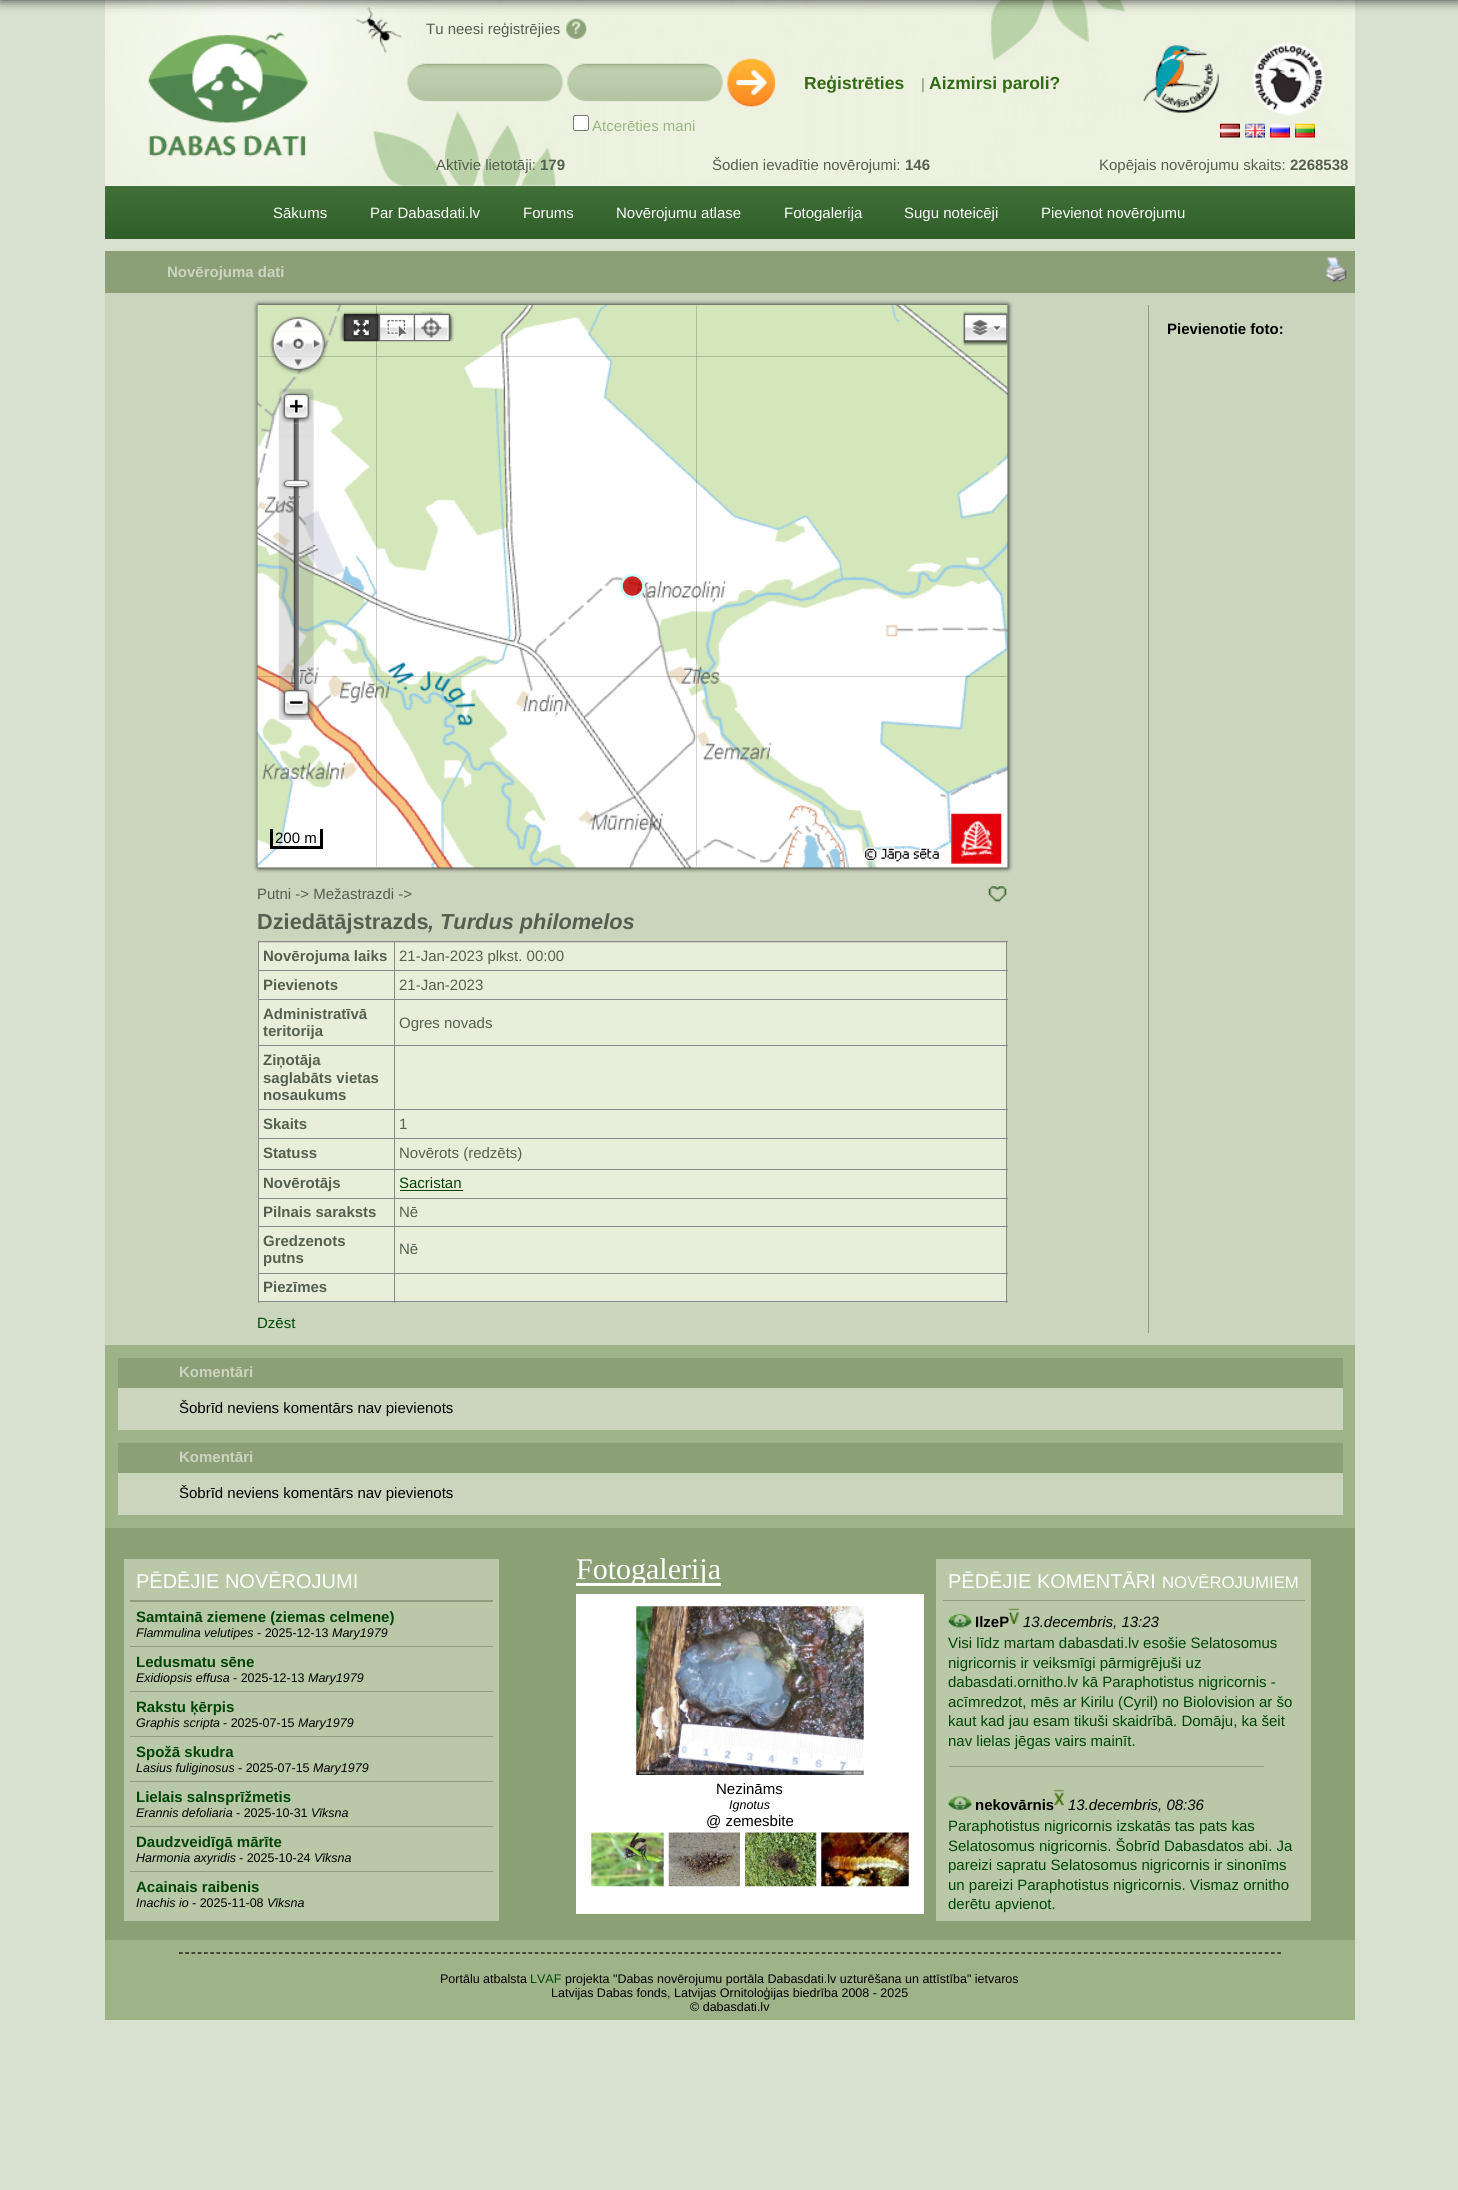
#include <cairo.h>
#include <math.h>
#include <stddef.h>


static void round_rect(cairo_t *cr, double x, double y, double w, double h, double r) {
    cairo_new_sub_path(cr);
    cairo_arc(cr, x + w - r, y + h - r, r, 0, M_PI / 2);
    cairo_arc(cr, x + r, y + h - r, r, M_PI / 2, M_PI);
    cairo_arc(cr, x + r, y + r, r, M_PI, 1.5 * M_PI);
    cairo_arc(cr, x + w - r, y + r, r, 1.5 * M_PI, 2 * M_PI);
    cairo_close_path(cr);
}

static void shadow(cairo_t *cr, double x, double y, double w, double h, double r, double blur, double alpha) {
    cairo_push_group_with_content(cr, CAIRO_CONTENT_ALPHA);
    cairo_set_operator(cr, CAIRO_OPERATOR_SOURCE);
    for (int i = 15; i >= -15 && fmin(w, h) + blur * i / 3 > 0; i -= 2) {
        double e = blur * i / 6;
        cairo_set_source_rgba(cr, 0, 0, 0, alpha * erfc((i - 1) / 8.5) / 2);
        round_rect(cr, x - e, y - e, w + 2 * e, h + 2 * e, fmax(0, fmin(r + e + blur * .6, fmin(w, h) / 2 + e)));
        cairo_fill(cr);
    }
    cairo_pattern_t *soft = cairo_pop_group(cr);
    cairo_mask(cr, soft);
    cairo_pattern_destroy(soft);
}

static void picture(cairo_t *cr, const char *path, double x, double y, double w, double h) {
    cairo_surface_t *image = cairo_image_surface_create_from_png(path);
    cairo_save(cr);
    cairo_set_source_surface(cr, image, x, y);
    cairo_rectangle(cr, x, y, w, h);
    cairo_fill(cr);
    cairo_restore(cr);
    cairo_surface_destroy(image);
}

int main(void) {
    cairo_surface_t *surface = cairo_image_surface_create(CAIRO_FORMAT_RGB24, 1458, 2190);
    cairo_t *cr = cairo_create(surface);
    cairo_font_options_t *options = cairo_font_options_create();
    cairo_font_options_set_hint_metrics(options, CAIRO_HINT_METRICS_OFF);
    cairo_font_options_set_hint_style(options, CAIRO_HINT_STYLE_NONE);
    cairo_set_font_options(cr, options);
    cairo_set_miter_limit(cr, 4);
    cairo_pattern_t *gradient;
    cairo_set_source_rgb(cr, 0.847, 0.882, 0.816);
    cairo_paint(cr);
    picture(cr, "img1.png", 105, 0, 1250, 186);
    picture(cr, "img2.png", 566, 18, 21, 21);
    cairo_set_source_rgb(cr, 0, 0, 0);
    shadow(cr, 0, -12, 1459, 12, 0, 6, 0.8);
    cairo_select_font_face(cr, "Liberation Sans", CAIRO_FONT_SLANT_NORMAL, CAIRO_FONT_WEIGHT_NORMAL);
    cairo_set_font_size(cr, 15);
    cairo_set_source_rgb(cr, 0.333, 0.373, 0.314);
    cairo_move_to(cr, 426, 34);
    cairo_show_text(cr, "Tu neesi reģistrējies");
    cairo_select_font_face(cr, "Liberation Sans", CAIRO_FONT_SLANT_NORMAL, CAIRO_FONT_WEIGHT_BOLD);
    cairo_set_font_size(cr, 17.5);
    cairo_set_source_rgb(cr, 0.204, 0.416, 0.086);
    cairo_move_to(cr, 804, 89);
    cairo_show_text(cr, "Reģistrēties");
    cairo_select_font_face(cr, "Liberation Sans", CAIRO_FONT_SLANT_NORMAL, CAIRO_FONT_WEIGHT_NORMAL);
    cairo_set_font_size(cr, 15);
    cairo_set_source_rgb(cr, 0.439, 0.569, 0.349);
    cairo_move_to(cr, 921, 89);
    cairo_show_text(cr, "|");
    cairo_select_font_face(cr, "Liberation Sans", CAIRO_FONT_SLANT_NORMAL, CAIRO_FONT_WEIGHT_BOLD);
    cairo_set_font_size(cr, 17.5);
    cairo_set_source_rgb(cr, 0.204, 0.416, 0.086);
    cairo_move_to(cr, 929, 89);
    cairo_show_text(cr, "Aizmirsi paroli?");
    picture(cr, "img3.png", 407, 63, 156, 40);
    picture(cr, "img4.png", 567, 63, 156, 40);
    picture(cr, "img5.png", 727, 58, 48, 49);
    cairo_set_source_rgb(cr, 1, 1, 1);
    round_rect(cr, 573.5, 115.5, 15, 15, 2);
    cairo_fill_preserve(cr);
    cairo_set_source_rgb(cr, 0.463, 0.463, 0.463);
    cairo_set_line_width(cr, 1);
    cairo_stroke(cr);
    cairo_select_font_face(cr, "Liberation Sans", CAIRO_FONT_SLANT_NORMAL, CAIRO_FONT_WEIGHT_NORMAL);
    cairo_set_font_size(cr, 15);
    cairo_set_source_rgb(cr, 0.616, 0.71, 0.522);
    cairo_move_to(cr, 592, 131);
    cairo_show_text(cr, "Atcerēties mani");
    cairo_set_source_rgb(cr, 0.333, 0.373, 0.314);
    cairo_move_to(cr, 436, 170);
    cairo_show_text(cr, "Aktīvie lietotāji:");
    cairo_select_font_face(cr, "Liberation Sans", CAIRO_FONT_SLANT_NORMAL, CAIRO_FONT_WEIGHT_BOLD);
    cairo_move_to(cr, 540, 170);
    cairo_show_text(cr, "179");
    cairo_select_font_face(cr, "Liberation Sans", CAIRO_FONT_SLANT_NORMAL, CAIRO_FONT_WEIGHT_NORMAL);
    cairo_move_to(cr, 712, 170);
    cairo_show_text(cr, "Šodien ievadītie novērojumi:");
    cairo_select_font_face(cr, "Liberation Sans", CAIRO_FONT_SLANT_NORMAL, CAIRO_FONT_WEIGHT_BOLD);
    cairo_move_to(cr, 905, 170);
    cairo_show_text(cr, "146");
    cairo_select_font_face(cr, "Liberation Sans", CAIRO_FONT_SLANT_NORMAL, CAIRO_FONT_WEIGHT_NORMAL);
    cairo_move_to(cr, 1099, 170);
    cairo_show_text(cr, "Kopējais novērojumu skaits:");
    cairo_select_font_face(cr, "Liberation Sans", CAIRO_FONT_SLANT_NORMAL, CAIRO_FONT_WEIGHT_BOLD);
    cairo_move_to(cr, 1290, 170);
    cairo_show_text(cr, "2268538");
    picture(cr, "img6.png", 1220, 123, 20, 15);
    picture(cr, "img7.png", 1245, 123, 20, 15);
    picture(cr, "img8.png", 1270, 123, 20, 15);
    picture(cr, "img9.png", 1295, 123, 20, 15);
    gradient = cairo_pattern_create_linear(730, 186, 730, 239);
    cairo_pattern_add_color_stop_rgba(gradient, 0, 0.251, 0.439, 0.22, 1);
    cairo_pattern_add_color_stop_rgba(gradient, 1, 0.188, 0.369, 0.161, 1);
    cairo_set_source(cr, gradient);
    cairo_pattern_destroy(gradient);
    cairo_rectangle(cr, 105, 186, 1250, 53);
    cairo_fill(cr);
    cairo_select_font_face(cr, "Liberation Sans", CAIRO_FONT_SLANT_NORMAL, CAIRO_FONT_WEIGHT_NORMAL);
    cairo_set_source_rgb(cr, 1, 1, 1);
    cairo_move_to(cr, 273, 218);
    cairo_show_text(cr, "Sākums");
    cairo_move_to(cr, 370, 218);
    cairo_show_text(cr, "Par Dabasdati.lv");
    cairo_move_to(cr, 523, 218);
    cairo_show_text(cr, "Forums");
    cairo_move_to(cr, 616, 218);
    cairo_show_text(cr, "Novērojumu atlase");
    cairo_move_to(cr, 784, 218);
    cairo_show_text(cr, "Fotogalerija");
    cairo_move_to(cr, 904, 218);
    cairo_show_text(cr, "Sugu noteicēji");
    cairo_move_to(cr, 1041, 218);
    cairo_show_text(cr, "Pievienot novērojumu");
    cairo_set_source_rgb(cr, 0.62, 0.702, 0.533);
    cairo_rectangle(cr, 105, 1345, 1250, 183);
    cairo_fill(cr);
    cairo_set_source_rgb(cr, 0.545, 0.627, 0.467);
    cairo_rectangle(cr, 105, 251, 1250, 42);
    cairo_fill(cr);
    cairo_select_font_face(cr, "Liberation Sans", CAIRO_FONT_SLANT_NORMAL, CAIRO_FONT_WEIGHT_BOLD);
    cairo_set_source_rgb(cr, 0.796, 0.835, 0.741);
    cairo_move_to(cr, 167, 277);
    cairo_show_text(cr, "Novērojuma dati");
    picture(cr, "img10.png", 1326, 257, 21, 25);
    cairo_rectangle(cr, 105, 293, 1250, 1052);
    cairo_fill(cr);
    cairo_set_source_rgb(cr, 0, 0, 0);
    cairo_move_to(cr, 1167, 334);
    cairo_show_text(cr, "Pievienotie foto:");
    cairo_set_source_rgb(cr, 0.545, 0.627, 0.467);
    cairo_rectangle(cr, 1148, 305, 1, 1028);
    cairo_fill(cr);
    cairo_set_source_rgb(cr, 0, 0, 0);
    shadow(cr, 258, 305, 750, 563, 0, 2.5, 1);
    picture(cr, "img15.png", 376, 356, 321, 321);
    picture(cr, "img16.png", 696, 356, 312, 321);
    picture(cr, "img12.png", 376, 305, 321, 52);
    picture(cr, "img18.png", 376, 676, 321, 192);
    picture(cr, "img14.png", 257, 356, 120, 321);
    picture(cr, "img11.png", 257, 305, 119, 52);
    picture(cr, "img13.png", 696, 305, 312, 52);
    picture(cr, "img17.png", 257, 676, 120, 192);
    picture(cr, "img19.png", 696, 676, 312, 192);
    cairo_set_source_rgba(cr, 0.753, 0, 0, 0.6);
    cairo_arc(cr, 632.5, 586, 11, 0, 2 * M_PI);
    cairo_fill_preserve(cr);
    cairo_set_source_rgb(cr, 0.804, 1, 1);
    cairo_set_line_width(cr, 2.5);
    cairo_stroke(cr);
    picture(cr, "img20.png", 339, 313, 5, 29);
    picture(cr, "img21.png", 343, 311, 36, 31);
    picture(cr, "img22.png", 378, 311, 36, 31);
    picture(cr, "img23.png", 413, 311, 36, 31);
    picture(cr, "img24.png", 448, 311, 6, 31);
    picture(cr, "img25.png", 963, 311, 45, 35);
    picture(cr, "img26.png", 272, 315, 52, 17);
    picture(cr, "img27.png", 269, 331, 29, 26);
    picture(cr, "img28.png", 297, 331, 31, 26);
    picture(cr, "img29.png", 271, 356, 54, 19);
    picture(cr, "img30.png", 278, 388, 36, 36);
    picture(cr, "img31.png", 278, 423, 36, 262);
    picture(cr, "img32.png", 281, 479, 31, 11);
    picture(cr, "img33.png", 278, 685, 36, 35);
    picture(cr, "img34.png", 963, 311, 45, 35);
    cairo_set_source_rgb(cr, 0, 0, 0);
    cairo_rectangle(cr, 320, 829, 3, 20);
    cairo_fill(cr);
    cairo_rectangle(cr, 270, 846, 53, 3);
    cairo_fill(cr);
    cairo_rectangle(cr, 270, 829, 3, 20);
    cairo_fill(cr);
    cairo_select_font_face(cr, "Liberation Sans", CAIRO_FONT_SLANT_NORMAL, CAIRO_FONT_WEIGHT_NORMAL);
    cairo_move_to(cr, 275, 843);
    cairo_show_text(cr, "200 m");
    picture(cr, "img35.png", 863, 847, 76, 15);
    picture(cr, "img36.png", 951, 813, 51, 51);
    cairo_set_source_rgb(cr, 0.333, 0.373, 0.314);
    cairo_move_to(cr, 257, 899);
    cairo_show_text(cr, "Putni -> Mežastrazdi ->");
    picture(cr, "img37.png", 988, 886, 19, 16);
    cairo_select_font_face(cr, "Liberation Sans", CAIRO_FONT_SLANT_NORMAL, CAIRO_FONT_WEIGHT_BOLD);
    cairo_set_font_size(cr, 21.75);
    cairo_move_to(cr, 257, 929);
    cairo_show_text(cr, "Dziedātājstrazds");
    cairo_select_font_face(cr, "Liberation Sans", CAIRO_FONT_SLANT_ITALIC, CAIRO_FONT_WEIGHT_BOLD);
    cairo_move_to(cr, 428, 929);
    cairo_show_text(cr, ", Turdus philomelos");
    cairo_set_source_rgb(cr, 0.91, 0.933, 0.851);
    cairo_rectangle(cr, 259, 943, 135, 27);
    cairo_fill(cr);
    cairo_set_source_rgb(cr, 0.533, 0.533, 0.533);
    cairo_rectangle(cr, 394, 941, 614, 1);
    cairo_fill(cr);
    cairo_rectangle(cr, 394, 970, 614, 1);
    cairo_fill(cr);
    cairo_rectangle(cr, 394, 999, 614, 1);
    cairo_fill(cr);
    cairo_rectangle(cr, 394, 1045, 614, 1);
    cairo_fill(cr);
    cairo_rectangle(cr, 394, 1109, 614, 1);
    cairo_fill(cr);
    cairo_rectangle(cr, 394, 1138, 614, 1);
    cairo_fill(cr);
    cairo_rectangle(cr, 394, 1169, 614, 1);
    cairo_fill(cr);
    cairo_rectangle(cr, 394, 1198, 614, 1);
    cairo_fill(cr);
    cairo_rectangle(cr, 394, 1226, 614, 1);
    cairo_fill(cr);
    cairo_rectangle(cr, 394, 1273, 614, 1);
    cairo_fill(cr);
    cairo_rectangle(cr, 1006, 1273, 1, 30);
    cairo_fill(cr);
    cairo_rectangle(cr, 394, 1301, 614, 1);
    cairo_fill(cr);
    cairo_rectangle(cr, 394, 1273, 1, 30);
    cairo_fill(cr);
    cairo_rectangle(cr, 258, 1273, 137, 1);
    cairo_fill(cr);
    cairo_rectangle(cr, 394, 1226, 1, 48);
    cairo_fill(cr);
    cairo_rectangle(cr, 258, 1226, 137, 1);
    cairo_fill(cr);
    cairo_rectangle(cr, 394, 1198, 1, 30);
    cairo_fill(cr);
    cairo_rectangle(cr, 258, 1198, 137, 1);
    cairo_fill(cr);
    cairo_rectangle(cr, 394, 1169, 1, 30);
    cairo_fill(cr);
    cairo_rectangle(cr, 258, 1169, 137, 1);
    cairo_fill(cr);
    cairo_rectangle(cr, 394, 1138, 1, 32);
    cairo_fill(cr);
    cairo_rectangle(cr, 258, 1138, 137, 1);
    cairo_fill(cr);
    cairo_rectangle(cr, 394, 1109, 1, 30);
    cairo_fill(cr);
    cairo_rectangle(cr, 258, 1109, 137, 1);
    cairo_fill(cr);
    cairo_rectangle(cr, 394, 1045, 1, 65);
    cairo_fill(cr);
    cairo_rectangle(cr, 258, 1045, 137, 1);
    cairo_fill(cr);
    cairo_rectangle(cr, 394, 999, 1, 47);
    cairo_fill(cr);
    cairo_rectangle(cr, 258, 999, 137, 1);
    cairo_fill(cr);
    cairo_rectangle(cr, 394, 970, 1, 30);
    cairo_fill(cr);
    cairo_rectangle(cr, 258, 970, 137, 1);
    cairo_fill(cr);
    cairo_rectangle(cr, 394, 941, 1, 30);
    cairo_fill(cr);
    cairo_rectangle(cr, 258, 941, 137, 1);
    cairo_fill(cr);
    cairo_rectangle(cr, 258, 1301, 137, 1);
    cairo_fill(cr);
    cairo_rectangle(cr, 258, 1273, 1, 30);
    cairo_fill(cr);
    cairo_rectangle(cr, 258, 1226, 1, 48);
    cairo_fill(cr);
    cairo_rectangle(cr, 258, 1198, 1, 30);
    cairo_fill(cr);
    cairo_rectangle(cr, 258, 1169, 1, 30);
    cairo_fill(cr);
    cairo_rectangle(cr, 258, 1138, 1, 32);
    cairo_fill(cr);
    cairo_rectangle(cr, 258, 1109, 1, 30);
    cairo_fill(cr);
    cairo_rectangle(cr, 258, 1045, 1, 65);
    cairo_fill(cr);
    cairo_rectangle(cr, 258, 999, 1, 47);
    cairo_fill(cr);
    cairo_rectangle(cr, 258, 970, 1, 30);
    cairo_fill(cr);
    cairo_rectangle(cr, 258, 941, 1, 30);
    cairo_fill(cr);
    cairo_select_font_face(cr, "Liberation Sans", CAIRO_FONT_SLANT_NORMAL, CAIRO_FONT_WEIGHT_BOLD);
    cairo_set_font_size(cr, 15);
    cairo_set_source_rgb(cr, 0.333, 0.373, 0.314);
    cairo_move_to(cr, 263, 961);
    cairo_show_text(cr, "Novērojuma laiks");
    cairo_set_source_rgb(cr, 0.91, 0.933, 0.851);
    cairo_rectangle(cr, 395, 943, 611, 27);
    cairo_fill(cr);
    cairo_set_source_rgb(cr, 0.533, 0.533, 0.533);
    cairo_rectangle(cr, 1006, 1226, 1, 48);
    cairo_fill(cr);
    cairo_rectangle(cr, 1006, 1198, 1, 30);
    cairo_fill(cr);
    cairo_rectangle(cr, 1006, 1169, 1, 30);
    cairo_fill(cr);
    cairo_rectangle(cr, 1006, 1138, 1, 32);
    cairo_fill(cr);
    cairo_rectangle(cr, 1006, 1109, 1, 30);
    cairo_fill(cr);
    cairo_rectangle(cr, 1006, 1045, 1, 65);
    cairo_fill(cr);
    cairo_rectangle(cr, 1006, 999, 1, 47);
    cairo_fill(cr);
    cairo_rectangle(cr, 1006, 970, 1, 30);
    cairo_fill(cr);
    cairo_rectangle(cr, 1006, 941, 1, 30);
    cairo_fill(cr);
    cairo_select_font_face(cr, "Liberation Sans", CAIRO_FONT_SLANT_NORMAL, CAIRO_FONT_WEIGHT_NORMAL);
    cairo_set_source_rgb(cr, 0.333, 0.373, 0.314);
    cairo_move_to(cr, 399, 961);
    cairo_show_text(cr, "21-Jan-2023 plkst. 00:00");
    cairo_set_source_rgb(cr, 0.91, 0.933, 0.851);
    cairo_rectangle(cr, 259, 971, 135, 28);
    cairo_fill(cr);
    cairo_select_font_face(cr, "Liberation Sans", CAIRO_FONT_SLANT_NORMAL, CAIRO_FONT_WEIGHT_BOLD);
    cairo_set_source_rgb(cr, 0.333, 0.373, 0.314);
    cairo_move_to(cr, 263, 990);
    cairo_show_text(cr, "Pievienots");
    cairo_set_source_rgb(cr, 0.91, 0.933, 0.851);
    cairo_rectangle(cr, 395, 971, 611, 28);
    cairo_fill(cr);
    cairo_select_font_face(cr, "Liberation Sans", CAIRO_FONT_SLANT_NORMAL, CAIRO_FONT_WEIGHT_NORMAL);
    cairo_set_source_rgb(cr, 0.333, 0.373, 0.314);
    cairo_move_to(cr, 399, 990);
    cairo_show_text(cr, "21-Jan-2023");
    cairo_set_source_rgb(cr, 0.91, 0.933, 0.851);
    cairo_rectangle(cr, 259, 1000, 135, 45);
    cairo_fill(cr);
    cairo_select_font_face(cr, "Liberation Sans", CAIRO_FONT_SLANT_NORMAL, CAIRO_FONT_WEIGHT_BOLD);
    cairo_set_source_rgb(cr, 0.333, 0.373, 0.314);
    cairo_move_to(cr, 263, 1019);
    cairo_show_text(cr, "Administratīvā");
    cairo_move_to(cr, 263, 1036);
    cairo_show_text(cr, "teritorija");
    cairo_set_source_rgb(cr, 0.91, 0.933, 0.851);
    cairo_rectangle(cr, 395, 1000, 611, 45);
    cairo_fill(cr);
    cairo_select_font_face(cr, "Liberation Sans", CAIRO_FONT_SLANT_NORMAL, CAIRO_FONT_WEIGHT_NORMAL);
    cairo_set_source_rgb(cr, 0.333, 0.373, 0.314);
    cairo_move_to(cr, 399, 1028);
    cairo_show_text(cr, "Ogres novads");
    cairo_set_source_rgb(cr, 0.91, 0.933, 0.851);
    cairo_rectangle(cr, 259, 1046, 135, 63);
    cairo_fill(cr);
    cairo_select_font_face(cr, "Liberation Sans", CAIRO_FONT_SLANT_NORMAL, CAIRO_FONT_WEIGHT_BOLD);
    cairo_set_source_rgb(cr, 0.333, 0.373, 0.314);
    cairo_move_to(cr, 263, 1065);
    cairo_show_text(cr, "Ziņotāja");
    cairo_move_to(cr, 263, 1083);
    cairo_show_text(cr, "saglabāts vietas");
    cairo_move_to(cr, 263, 1100);
    cairo_show_text(cr, "nosaukums");
    cairo_set_source_rgb(cr, 0.91, 0.933, 0.851);
    cairo_rectangle(cr, 395, 1046, 611, 63);
    cairo_fill(cr);
    cairo_rectangle(cr, 259, 1110, 135, 28);
    cairo_fill(cr);
    cairo_set_source_rgb(cr, 0.333, 0.373, 0.314);
    cairo_move_to(cr, 263, 1129);
    cairo_show_text(cr, "Skaits");
    cairo_set_source_rgb(cr, 0.91, 0.933, 0.851);
    cairo_rectangle(cr, 395, 1110, 611, 28);
    cairo_fill(cr);
    cairo_select_font_face(cr, "Liberation Sans", CAIRO_FONT_SLANT_NORMAL, CAIRO_FONT_WEIGHT_NORMAL);
    cairo_set_source_rgb(cr, 0.333, 0.373, 0.314);
    cairo_move_to(cr, 399, 1129);
    cairo_show_text(cr, "1");
    cairo_set_source_rgb(cr, 0.91, 0.933, 0.851);
    cairo_rectangle(cr, 259, 1139, 135, 30);
    cairo_fill(cr);
    cairo_select_font_face(cr, "Liberation Sans", CAIRO_FONT_SLANT_NORMAL, CAIRO_FONT_WEIGHT_BOLD);
    cairo_set_source_rgb(cr, 0.333, 0.373, 0.314);
    cairo_move_to(cr, 263, 1158);
    cairo_show_text(cr, "Statuss");
    cairo_set_source_rgb(cr, 0.91, 0.933, 0.851);
    cairo_rectangle(cr, 395, 1139, 611, 30);
    cairo_fill(cr);
    cairo_select_font_face(cr, "Liberation Sans", CAIRO_FONT_SLANT_NORMAL, CAIRO_FONT_WEIGHT_NORMAL);
    cairo_set_source_rgb(cr, 0.333, 0.373, 0.314);
    cairo_move_to(cr, 399, 1158);
    cairo_show_text(cr, "Novērots (redzēts)");
    cairo_set_source_rgb(cr, 0.91, 0.933, 0.851);
    cairo_rectangle(cr, 259, 1170, 135, 28);
    cairo_fill(cr);
    cairo_select_font_face(cr, "Liberation Sans", CAIRO_FONT_SLANT_NORMAL, CAIRO_FONT_WEIGHT_BOLD);
    cairo_set_source_rgb(cr, 0.333, 0.373, 0.314);
    cairo_move_to(cr, 263, 1188);
    cairo_show_text(cr, "Novērotājs");
    cairo_set_source_rgb(cr, 0.91, 0.933, 0.851);
    cairo_rectangle(cr, 395, 1170, 611, 28);
    cairo_fill(cr);
    cairo_select_font_face(cr, "Liberation Sans", CAIRO_FONT_SLANT_NORMAL, CAIRO_FONT_WEIGHT_NORMAL);
    cairo_set_source_rgb(cr, 0.004, 0.271, 0.027);
    cairo_move_to(cr, 399, 1188);
    cairo_show_text(cr, "Sacristan");
    cairo_rectangle(cr, 400, 1190, 63, 1);
    cairo_fill(cr);
    cairo_set_source_rgb(cr, 0.91, 0.933, 0.851);
    cairo_rectangle(cr, 259, 1199, 135, 27);
    cairo_fill(cr);
    cairo_select_font_face(cr, "Liberation Sans", CAIRO_FONT_SLANT_NORMAL, CAIRO_FONT_WEIGHT_BOLD);
    cairo_set_source_rgb(cr, 0.333, 0.373, 0.314);
    cairo_move_to(cr, 263, 1217);
    cairo_show_text(cr, "Pilnais saraksts");
    cairo_set_source_rgb(cr, 0.91, 0.933, 0.851);
    cairo_rectangle(cr, 395, 1199, 611, 27);
    cairo_fill(cr);
    cairo_select_font_face(cr, "Liberation Sans", CAIRO_FONT_SLANT_NORMAL, CAIRO_FONT_WEIGHT_NORMAL);
    cairo_set_source_rgb(cr, 0.333, 0.373, 0.314);
    cairo_move_to(cr, 399, 1217);
    cairo_show_text(cr, "Nē");
    cairo_set_source_rgb(cr, 0.91, 0.933, 0.851);
    cairo_rectangle(cr, 259, 1227, 135, 46);
    cairo_fill(cr);
    cairo_select_font_face(cr, "Liberation Sans", CAIRO_FONT_SLANT_NORMAL, CAIRO_FONT_WEIGHT_BOLD);
    cairo_set_source_rgb(cr, 0.333, 0.373, 0.314);
    cairo_move_to(cr, 263, 1246);
    cairo_show_text(cr, "Gredzenots");
    cairo_move_to(cr, 263, 1263);
    cairo_show_text(cr, "putns");
    cairo_set_source_rgb(cr, 0.91, 0.933, 0.851);
    cairo_rectangle(cr, 395, 1227, 611, 46);
    cairo_fill(cr);
    cairo_select_font_face(cr, "Liberation Sans", CAIRO_FONT_SLANT_NORMAL, CAIRO_FONT_WEIGHT_NORMAL);
    cairo_set_source_rgb(cr, 0.333, 0.373, 0.314);
    cairo_move_to(cr, 399, 1254);
    cairo_show_text(cr, "Nē");
    cairo_set_source_rgb(cr, 0.91, 0.933, 0.851);
    cairo_rectangle(cr, 259, 1274, 135, 27);
    cairo_fill(cr);
    cairo_select_font_face(cr, "Liberation Sans", CAIRO_FONT_SLANT_NORMAL, CAIRO_FONT_WEIGHT_BOLD);
    cairo_set_source_rgb(cr, 0.333, 0.373, 0.314);
    cairo_move_to(cr, 263, 1292);
    cairo_show_text(cr, "Piezīmes");
    cairo_set_source_rgb(cr, 0.91, 0.933, 0.851);
    cairo_rectangle(cr, 395, 1274, 611, 27);
    cairo_fill(cr);
    cairo_select_font_face(cr, "Liberation Sans", CAIRO_FONT_SLANT_NORMAL, CAIRO_FONT_WEIGHT_NORMAL);
    cairo_set_source_rgb(cr, 0.004, 0.271, 0.027);
    cairo_move_to(cr, 257, 1328);
    cairo_show_text(cr, "Dzēst");
    cairo_set_source_rgb(cr, 0.545, 0.627, 0.467);
    cairo_rectangle(cr, 118, 1358, 1225, 30);
    cairo_fill(cr);
    cairo_select_font_face(cr, "Liberation Sans", CAIRO_FONT_SLANT_NORMAL, CAIRO_FONT_WEIGHT_BOLD);
    cairo_set_source_rgb(cr, 0.796, 0.835, 0.741);
    cairo_move_to(cr, 179, 1377);
    cairo_show_text(cr, "Komentāri");
    cairo_rectangle(cr, 118, 1388, 1225, 42);
    cairo_fill(cr);
    cairo_select_font_face(cr, "Liberation Sans", CAIRO_FONT_SLANT_NORMAL, CAIRO_FONT_WEIGHT_NORMAL);
    cairo_set_source_rgb(cr, 0, 0, 0);
    cairo_move_to(cr, 179, 1413);
    cairo_show_text(cr, "Šobrīd neviens komentārs nav pievienots");
    cairo_set_source_rgb(cr, 0.545, 0.627, 0.467);
    cairo_rectangle(cr, 118, 1443, 1225, 30);
    cairo_fill(cr);
    cairo_select_font_face(cr, "Liberation Sans", CAIRO_FONT_SLANT_NORMAL, CAIRO_FONT_WEIGHT_BOLD);
    cairo_set_source_rgb(cr, 0.796, 0.835, 0.741);
    cairo_move_to(cr, 179, 1462);
    cairo_show_text(cr, "Komentāri");
    cairo_rectangle(cr, 118, 1473, 1225, 42);
    cairo_fill(cr);
    cairo_select_font_face(cr, "Liberation Sans", CAIRO_FONT_SLANT_NORMAL, CAIRO_FONT_WEIGHT_NORMAL);
    cairo_set_source_rgb(cr, 0, 0, 0);
    cairo_move_to(cr, 179, 1498);
    cairo_show_text(cr, "Šobrīd neviens komentārs nav pievienots");
    cairo_set_source_rgb(cr, 0.545, 0.627, 0.459);
    cairo_rectangle(cr, 105, 1528, 1250, 412);
    cairo_fill(cr);
    cairo_set_source_rgb(cr, 0.725, 0.784, 0.655);
    cairo_rectangle(cr, 124, 1559, 375, 362);
    cairo_fill(cr);
    cairo_set_source_rgb(cr, 0.565, 0.616, 0.506);
    cairo_rectangle(cr, 130, 1600, 363, 2);
    cairo_fill(cr);
    cairo_set_font_size(cr, 20);
    cairo_set_source_rgb(cr, 1, 1, 1);
    cairo_move_to(cr, 136, 1588);
    cairo_show_text(cr, "PĒDĒJIE NOVĒROJUMI");
    cairo_select_font_face(cr, "Liberation Sans", CAIRO_FONT_SLANT_NORMAL, CAIRO_FONT_WEIGHT_BOLD);
    cairo_set_font_size(cr, 15);
    cairo_set_source_rgb(cr, 0.004, 0.271, 0.027);
    cairo_move_to(cr, 136, 1622);
    cairo_show_text(cr, "Samtainā ziemene (ziemas celmene)");
    cairo_select_font_face(cr, "Liberation Sans", CAIRO_FONT_SLANT_ITALIC, CAIRO_FONT_WEIGHT_NORMAL);
    cairo_set_font_size(cr, 12.5);
    cairo_set_source_rgb(cr, 0, 0, 0);
    cairo_move_to(cr, 136, 1637);
    cairo_show_text(cr, "Flammulina velutipes");
    cairo_select_font_face(cr, "Liberation Sans", CAIRO_FONT_SLANT_NORMAL, CAIRO_FONT_WEIGHT_NORMAL);
    cairo_move_to(cr, 257, 1637);
    cairo_show_text(cr, "- 2025-12-13");
    cairo_select_font_face(cr, "Liberation Sans", CAIRO_FONT_SLANT_ITALIC, CAIRO_FONT_WEIGHT_NORMAL);
    cairo_move_to(cr, 332, 1637);
    cairo_show_text(cr, "Mary1979");
    cairo_set_source_rgb(cr, 0.565, 0.616, 0.506);
    cairo_rectangle(cr, 130, 1646, 363, 1);
    cairo_fill(cr);
    cairo_select_font_face(cr, "Liberation Sans", CAIRO_FONT_SLANT_NORMAL, CAIRO_FONT_WEIGHT_BOLD);
    cairo_set_font_size(cr, 15);
    cairo_set_source_rgb(cr, 0.004, 0.271, 0.027);
    cairo_move_to(cr, 136, 1667);
    cairo_show_text(cr, "Ledusmatu sēne");
    cairo_select_font_face(cr, "Liberation Sans", CAIRO_FONT_SLANT_ITALIC, CAIRO_FONT_WEIGHT_NORMAL);
    cairo_set_font_size(cr, 12.5);
    cairo_set_source_rgb(cr, 0, 0, 0);
    cairo_move_to(cr, 136, 1682);
    cairo_show_text(cr, "Exidiopsis effusa");
    cairo_select_font_face(cr, "Liberation Sans", CAIRO_FONT_SLANT_NORMAL, CAIRO_FONT_WEIGHT_NORMAL);
    cairo_move_to(cr, 233, 1682);
    cairo_show_text(cr, "- 2025-12-13");
    cairo_select_font_face(cr, "Liberation Sans", CAIRO_FONT_SLANT_ITALIC, CAIRO_FONT_WEIGHT_NORMAL);
    cairo_move_to(cr, 308, 1682);
    cairo_show_text(cr, "Mary1979");
    cairo_set_source_rgb(cr, 0.565, 0.616, 0.506);
    cairo_rectangle(cr, 130, 1691, 363, 1);
    cairo_fill(cr);
    cairo_select_font_face(cr, "Liberation Sans", CAIRO_FONT_SLANT_NORMAL, CAIRO_FONT_WEIGHT_BOLD);
    cairo_set_font_size(cr, 15);
    cairo_set_source_rgb(cr, 0.004, 0.271, 0.027);
    cairo_move_to(cr, 136, 1712);
    cairo_show_text(cr, "Rakstu ķērpis");
    cairo_select_font_face(cr, "Liberation Sans", CAIRO_FONT_SLANT_ITALIC, CAIRO_FONT_WEIGHT_NORMAL);
    cairo_set_font_size(cr, 12.5);
    cairo_set_source_rgb(cr, 0, 0, 0);
    cairo_move_to(cr, 136, 1727);
    cairo_show_text(cr, "Graphis scripta");
    cairo_select_font_face(cr, "Liberation Sans", CAIRO_FONT_SLANT_NORMAL, CAIRO_FONT_WEIGHT_NORMAL);
    cairo_move_to(cr, 223, 1727);
    cairo_show_text(cr, "- 2025-07-15");
    cairo_select_font_face(cr, "Liberation Sans", CAIRO_FONT_SLANT_ITALIC, CAIRO_FONT_WEIGHT_NORMAL);
    cairo_move_to(cr, 298, 1727);
    cairo_show_text(cr, "Mary1979");
    cairo_set_source_rgb(cr, 0.565, 0.616, 0.506);
    cairo_rectangle(cr, 130, 1736, 363, 1);
    cairo_fill(cr);
    cairo_select_font_face(cr, "Liberation Sans", CAIRO_FONT_SLANT_NORMAL, CAIRO_FONT_WEIGHT_BOLD);
    cairo_set_font_size(cr, 15);
    cairo_set_source_rgb(cr, 0.004, 0.271, 0.027);
    cairo_move_to(cr, 136, 1757);
    cairo_show_text(cr, "Spožā skudra");
    cairo_select_font_face(cr, "Liberation Sans", CAIRO_FONT_SLANT_ITALIC, CAIRO_FONT_WEIGHT_NORMAL);
    cairo_set_font_size(cr, 12.5);
    cairo_set_source_rgb(cr, 0, 0, 0);
    cairo_move_to(cr, 136, 1772);
    cairo_show_text(cr, "Lasius fuliginosus");
    cairo_select_font_face(cr, "Liberation Sans", CAIRO_FONT_SLANT_NORMAL, CAIRO_FONT_WEIGHT_NORMAL);
    cairo_move_to(cr, 238, 1772);
    cairo_show_text(cr, "- 2025-07-15");
    cairo_select_font_face(cr, "Liberation Sans", CAIRO_FONT_SLANT_ITALIC, CAIRO_FONT_WEIGHT_NORMAL);
    cairo_move_to(cr, 313, 1772);
    cairo_show_text(cr, "Mary1979");
    cairo_set_source_rgb(cr, 0.565, 0.616, 0.506);
    cairo_rectangle(cr, 130, 1781, 363, 1);
    cairo_fill(cr);
    cairo_select_font_face(cr, "Liberation Sans", CAIRO_FONT_SLANT_NORMAL, CAIRO_FONT_WEIGHT_BOLD);
    cairo_set_font_size(cr, 15);
    cairo_set_source_rgb(cr, 0.004, 0.271, 0.027);
    cairo_move_to(cr, 136, 1802);
    cairo_show_text(cr, "Lielais salnsprīžmetis");
    cairo_select_font_face(cr, "Liberation Sans", CAIRO_FONT_SLANT_ITALIC, CAIRO_FONT_WEIGHT_NORMAL);
    cairo_set_font_size(cr, 12.5);
    cairo_set_source_rgb(cr, 0, 0, 0);
    cairo_move_to(cr, 136, 1817);
    cairo_show_text(cr, "Erannis defoliaria");
    cairo_select_font_face(cr, "Liberation Sans", CAIRO_FONT_SLANT_NORMAL, CAIRO_FONT_WEIGHT_NORMAL);
    cairo_move_to(cr, 236, 1817);
    cairo_show_text(cr, "- 2025-10-31");
    cairo_select_font_face(cr, "Liberation Sans", CAIRO_FONT_SLANT_ITALIC, CAIRO_FONT_WEIGHT_NORMAL);
    cairo_move_to(cr, 311, 1817);
    cairo_show_text(cr, "Vīksna");
    cairo_set_source_rgb(cr, 0.565, 0.616, 0.506);
    cairo_rectangle(cr, 130, 1826, 363, 1);
    cairo_fill(cr);
    cairo_select_font_face(cr, "Liberation Sans", CAIRO_FONT_SLANT_NORMAL, CAIRO_FONT_WEIGHT_BOLD);
    cairo_set_font_size(cr, 15);
    cairo_set_source_rgb(cr, 0.004, 0.271, 0.027);
    cairo_move_to(cr, 136, 1847);
    cairo_show_text(cr, "Daudzveidīgā mārīte");
    cairo_select_font_face(cr, "Liberation Sans", CAIRO_FONT_SLANT_ITALIC, CAIRO_FONT_WEIGHT_NORMAL);
    cairo_set_font_size(cr, 12.5);
    cairo_set_source_rgb(cr, 0, 0, 0);
    cairo_move_to(cr, 136, 1862);
    cairo_show_text(cr, "Harmonia axyridis");
    cairo_select_font_face(cr, "Liberation Sans", CAIRO_FONT_SLANT_NORMAL, CAIRO_FONT_WEIGHT_NORMAL);
    cairo_move_to(cr, 239, 1862);
    cairo_show_text(cr, "- 2025-10-24");
    cairo_select_font_face(cr, "Liberation Sans", CAIRO_FONT_SLANT_ITALIC, CAIRO_FONT_WEIGHT_NORMAL);
    cairo_move_to(cr, 314, 1862);
    cairo_show_text(cr, "Vīksna");
    cairo_set_source_rgb(cr, 0.565, 0.616, 0.506);
    cairo_rectangle(cr, 130, 1871, 363, 1);
    cairo_fill(cr);
    cairo_select_font_face(cr, "Liberation Sans", CAIRO_FONT_SLANT_NORMAL, CAIRO_FONT_WEIGHT_BOLD);
    cairo_set_font_size(cr, 15);
    cairo_set_source_rgb(cr, 0.004, 0.271, 0.027);
    cairo_move_to(cr, 136, 1892);
    cairo_show_text(cr, "Acainais raibenis");
    cairo_select_font_face(cr, "Liberation Sans", CAIRO_FONT_SLANT_ITALIC, CAIRO_FONT_WEIGHT_NORMAL);
    cairo_set_font_size(cr, 12.5);
    cairo_set_source_rgb(cr, 0, 0, 0);
    cairo_move_to(cr, 136, 1907);
    cairo_show_text(cr, "Inachis io");
    cairo_select_font_face(cr, "Liberation Sans", CAIRO_FONT_SLANT_NORMAL, CAIRO_FONT_WEIGHT_NORMAL);
    cairo_move_to(cr, 192, 1907);
    cairo_show_text(cr, "- 2025-11-08");
    cairo_select_font_face(cr, "Liberation Sans", CAIRO_FONT_SLANT_ITALIC, CAIRO_FONT_WEIGHT_NORMAL);
    cairo_move_to(cr, 267, 1907);
    cairo_show_text(cr, "Vīksna");
    cairo_set_source_rgb(cr, 1, 1, 1);
    cairo_rectangle(cr, 576, 1583, 145, 3);
    cairo_fill(cr);
    cairo_select_font_face(cr, "Liberation Serif", CAIRO_FONT_SLANT_NORMAL, CAIRO_FONT_WEIGHT_NORMAL);
    cairo_set_font_size(cr, 30);
    cairo_move_to(cr, 576, 1579);
    cairo_show_text(cr, "Fotogalerija");
    cairo_rectangle(cr, 576, 1594, 348, 320);
    cairo_fill(cr);
    picture(cr, "img38.png", 636, 1606, 228, 169);
    cairo_select_font_face(cr, "Liberation Sans", CAIRO_FONT_SLANT_NORMAL, CAIRO_FONT_WEIGHT_NORMAL);
    cairo_set_font_size(cr, 15);
    cairo_set_source_rgb(cr, 0, 0, 0);
    cairo_move_to(cr, 716, 1794);
    cairo_show_text(cr, "Nezināms");
    cairo_select_font_face(cr, "Liberation Sans", CAIRO_FONT_SLANT_ITALIC, CAIRO_FONT_WEIGHT_NORMAL);
    cairo_set_font_size(cr, 12.5);
    cairo_move_to(cr, 729, 1809);
    cairo_show_text(cr, "Ignotus");
    cairo_select_font_face(cr, "Liberation Sans", CAIRO_FONT_SLANT_NORMAL, CAIRO_FONT_WEIGHT_NORMAL);
    cairo_set_font_size(cr, 15);
    cairo_move_to(cr, 706, 1826);
    cairo_show_text(cr, "@ zemesbite");
    picture(cr, "img39.png", 591, 1832, 73, 55);
    picture(cr, "img40.png", 668, 1832, 72, 55);
    picture(cr, "img41.png", 745, 1832, 72, 55);
    picture(cr, "img42.png", 821, 1832, 88, 55);
    cairo_set_source_rgb(cr, 0.725, 0.784, 0.655);
    cairo_rectangle(cr, 936, 1559, 375, 362);
    cairo_fill(cr);
    cairo_set_source_rgb(cr, 0.565, 0.616, 0.506);
    cairo_rectangle(cr, 943, 1600, 362, 1);
    cairo_fill(cr);
    cairo_set_font_size(cr, 20);
    cairo_set_source_rgb(cr, 1, 1, 1);
    cairo_move_to(cr, 948, 1588);
    cairo_show_text(cr, "PĒDĒJIE KOMENTĀRI");
    cairo_set_font_size(cr, 16.75);
    cairo_move_to(cr, 1162, 1588);
    cairo_show_text(cr, "NOVĒROJUMIEM");
    picture(cr, "img43.png", 948, 1613, 24, 15);
    cairo_select_font_face(cr, "Liberation Sans", CAIRO_FONT_SLANT_NORMAL, CAIRO_FONT_WEIGHT_BOLD);
    cairo_set_font_size(cr, 15);
    cairo_set_source_rgb(cr, 0, 0, 0);
    cairo_move_to(cr, 975, 1627);
    cairo_show_text(cr, "IlzeP");
    picture(cr, "img44.png", 1008, 1608, 11, 16);
    cairo_select_font_face(cr, "Liberation Sans", CAIRO_FONT_SLANT_ITALIC, CAIRO_FONT_WEIGHT_NORMAL);
    cairo_move_to(cr, 1023, 1627);
    cairo_show_text(cr, "13.decembris, 13:23");
    cairo_select_font_face(cr, "Liberation Sans", CAIRO_FONT_SLANT_NORMAL, CAIRO_FONT_WEIGHT_NORMAL);
    cairo_set_source_rgb(cr, 0.004, 0.271, 0.027);
    cairo_move_to(cr, 948, 1648);
    cairo_show_text(cr, "Visi līdz martam dabasdati.lv esošie Selatosomus");
    cairo_move_to(cr, 948, 1668);
    cairo_show_text(cr, "nigricornis ir veiksmīgi pārmigrējuši uz");
    cairo_move_to(cr, 948, 1687);
    cairo_show_text(cr, "dabasdati.ornitho.lv kā Paraphotistus nigricornis -");
    cairo_move_to(cr, 948, 1707);
    cairo_show_text(cr, "acīmredzot, mēs ar Kirilu (Cyril) no Biolovision ar šo");
    cairo_move_to(cr, 948, 1726);
    cairo_show_text(cr, "kaut kad jau esam tikuši skaidrībā. Domāju, ka šeit");
    cairo_move_to(cr, 948, 1746);
    cairo_show_text(cr, "nav lielas jēgas vairs mainīt.");
    cairo_set_source_rgb(cr, 0.565, 0.616, 0.506);
    cairo_rectangle(cr, 949, 1766, 315, 1);
    cairo_fill(cr);
    picture(cr, "img45.png", 948, 1796, 24, 14);
    cairo_select_font_face(cr, "Liberation Sans", CAIRO_FONT_SLANT_NORMAL, CAIRO_FONT_WEIGHT_BOLD);
    cairo_set_source_rgb(cr, 0, 0, 0);
    cairo_move_to(cr, 975, 1810);
    cairo_show_text(cr, "nekovārnis");
    picture(cr, "img46.png", 1053, 1789, 11, 20);
    cairo_select_font_face(cr, "Liberation Sans", CAIRO_FONT_SLANT_ITALIC, CAIRO_FONT_WEIGHT_NORMAL);
    cairo_move_to(cr, 1068, 1810);
    cairo_show_text(cr, "13.decembris, 08:36");
    cairo_select_font_face(cr, "Liberation Sans", CAIRO_FONT_SLANT_NORMAL, CAIRO_FONT_WEIGHT_NORMAL);
    cairo_set_source_rgb(cr, 0.004, 0.271, 0.027);
    cairo_move_to(cr, 948, 1831);
    cairo_show_text(cr, "Paraphotistus nigricornis izskatās tas pats kas");
    cairo_move_to(cr, 948, 1851);
    cairo_show_text(cr, "Selatosomus nigricornis. Šobrīd Dabasdatos abi. Ja");
    cairo_move_to(cr, 948, 1870);
    cairo_show_text(cr, "pareizi sapratu Selatosomus nigricornis ir sinonīms");
    cairo_move_to(cr, 948, 1890);
    cairo_show_text(cr, "un pareizi Paraphotistus nigricornis. Vismaz ornitho");
    cairo_move_to(cr, 948, 1909);
    cairo_show_text(cr, "derētu apvienot.");
    cairo_set_source_rgb(cr, 0.62, 0.702, 0.533);
    cairo_rectangle(cr, 105, 1940, 1250, 80);
    cairo_fill(cr);
    cairo_new_path(cr);
    cairo_move_to(cr, 179, 1953);
    cairo_line_to(cr, 1281, 1953);
    cairo_set_source_rgb(cr, 0, 0, 0);
    cairo_set_line_width(cr, 1.2);
    cairo_set_dash(cr, (double[]){3.75, 2.49}, 2, 0);
    cairo_stroke(cr);
    cairo_set_font_size(cr, 12.5);
    cairo_move_to(cr, 440, 1983);
    cairo_show_text(cr, "Portālu atbalsta");
    cairo_set_source_rgb(cr, 0.004, 0.271, 0.027);
    cairo_move_to(cr, 530, 1983);
    cairo_show_text(cr, "LVAF");
    cairo_set_source_rgb(cr, 0, 0, 0);
    cairo_move_to(cr, 565, 1983);
    cairo_show_text(cr, "projekta \"Dabas novērojumu portāla Dabasdati.lv uzturēšana un attīstība\" ietvaros");
    cairo_move_to(cr, 551, 1997);
    cairo_show_text(cr, "Latvijas Dabas fonds, Latvijas Ornitoloģijas biedrība 2008 - 2025");
    cairo_move_to(cr, 690, 2011);
    cairo_show_text(cr, "© dabasdati.lv");
    cairo_surface_write_to_png(surface, "page.png");
    cairo_font_options_destroy(options);
    cairo_destroy(cr);
    cairo_surface_destroy(surface);
    return 0;
}
